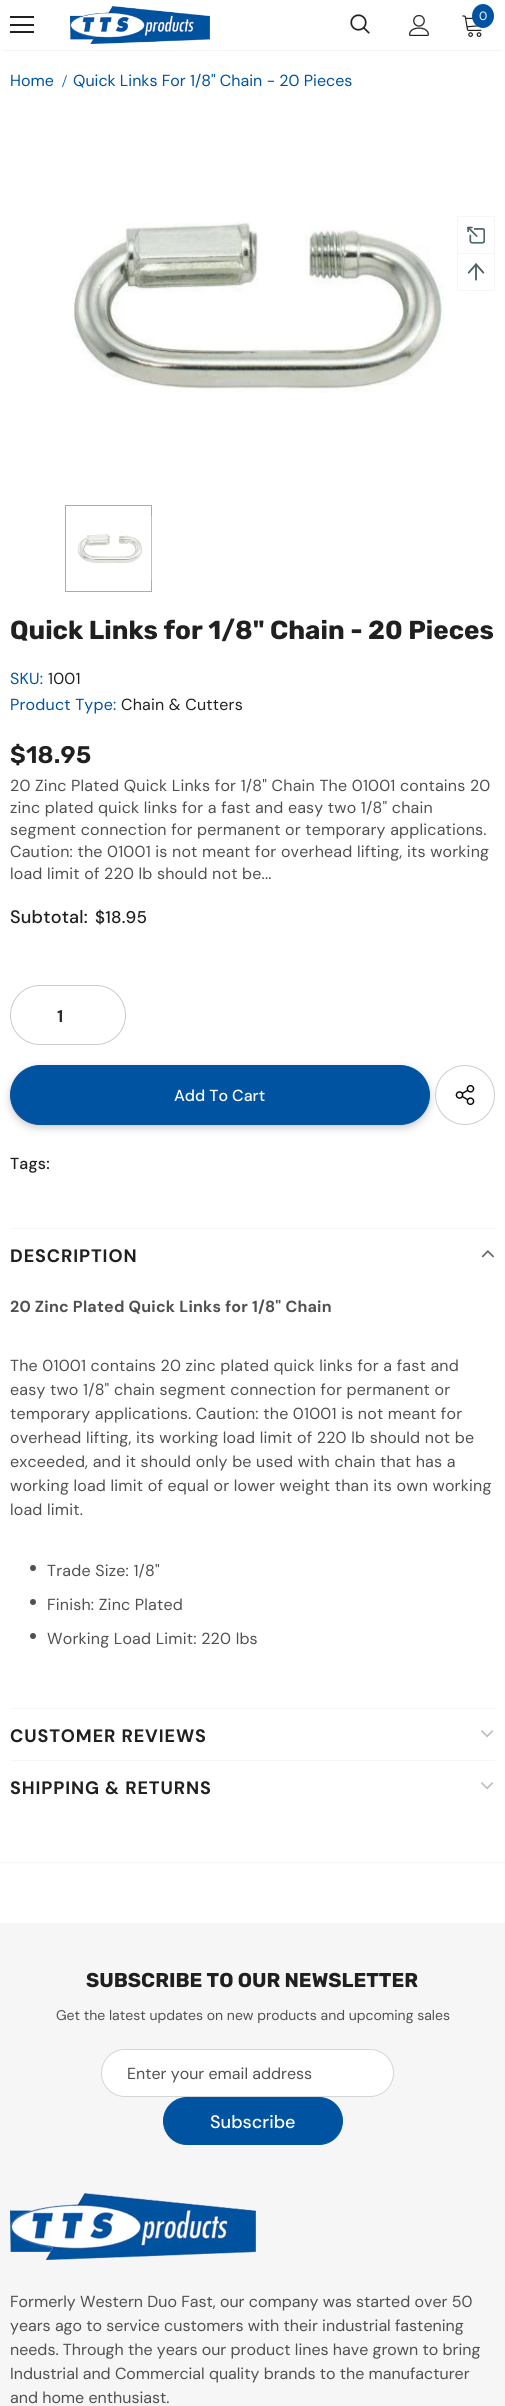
#include <cairo.h>
#include <math.h>
#include <stddef.h>


static void spaced_text(cairo_t *cr, double x, double y, const char *s, double letter, double word) {
    cairo_move_to(cr, x, y);
    while (*s) {
        char ch[5] = {0};
        int n = 0;
        do ch[n++] = *s++; while ((*s & 0xC0) == 0x80);
        cairo_show_text(cr, ch);
        cairo_rel_move_to(cr, letter + word * (*ch == ' '), 0);
    }
}

static void round_rect(cairo_t *cr, double x, double y, double w, double h, double r) {
    cairo_new_sub_path(cr);
    cairo_arc(cr, x + w - r, y + h - r, r, 0, M_PI / 2);
    cairo_arc(cr, x + r, y + h - r, r, M_PI / 2, M_PI);
    cairo_arc(cr, x + r, y + r, r, M_PI, 1.5 * M_PI);
    cairo_arc(cr, x + w - r, y + r, r, 1.5 * M_PI, 2 * M_PI);
    cairo_close_path(cr);
}

static void shadow(cairo_t *cr, double x, double y, double w, double h, double r, double blur, double alpha) {
    cairo_push_group_with_content(cr, CAIRO_CONTENT_ALPHA);
    cairo_set_operator(cr, CAIRO_OPERATOR_SOURCE);
    for (int i = 15; i >= -15 && fmin(w, h) + blur * i / 3 > 0; i -= 2) {
        double e = blur * i / 6;
        cairo_set_source_rgba(cr, 0, 0, 0, alpha * erfc((i - 1) / 8.5) / 2);
        round_rect(cr, x - e, y - e, w + 2 * e, h + 2 * e, fmax(0, fmin(r + e + blur * .6, fmin(w, h) / 2 + e)));
        cairo_fill(cr);
    }
    cairo_pattern_t *soft = cairo_pop_group(cr);
    cairo_mask(cr, soft);
    cairo_pattern_destroy(soft);
}

static void picture(cairo_t *cr, const char *path, double x, double y, double w, double h) {
    cairo_surface_t *image = cairo_image_surface_create_from_png(path);
    cairo_save(cr);
    cairo_set_source_surface(cr, image, x, y);
    cairo_rectangle(cr, x, y, w, h);
    cairo_fill(cr);
    cairo_restore(cr);
    cairo_surface_destroy(image);
}

int main(void) {
    cairo_surface_t *surface = cairo_image_surface_create(CAIRO_FORMAT_RGB24, 505, 2406);
    cairo_t *cr = cairo_create(surface);
    cairo_font_options_t *options = cairo_font_options_create();
    cairo_font_options_set_hint_metrics(options, CAIRO_HINT_METRICS_OFF);
    cairo_font_options_set_hint_style(options, CAIRO_HINT_STYLE_NONE);
    cairo_set_font_options(cr, options);
    cairo_set_miter_limit(cr, 4);
    cairo_set_source_rgb(cr, 1, 1, 1);
    cairo_paint(cr);
    cairo_save(cr);
    cairo_rectangle(cr, 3, 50, 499, 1);
    cairo_clip(cr);
    cairo_set_source_rgb(cr, 0, 0, 0);
    shadow(cr, 3, 6, 499, 44, 0, 1.5, 0.12);
    cairo_restore(cr);
    cairo_set_source_rgb(cr, 0.125, 0.125, 0.125);
    cairo_rectangle(cr, 10, 16, 24, 2);
    cairo_fill(cr);
    cairo_rectangle(cr, 10, 24, 24, 2);
    cairo_fill(cr);
    cairo_rectangle(cr, 10, 31, 24, 2);
    cairo_fill(cr);
    picture(cr, "img1.png", 70, 6, 140, 38);
    picture(cr, "img2.png", 350, 14, 20, 20);
    picture(cr, "img3.png", 409, 15, 20, 21);
    picture(cr, "img4.png", 462, 15, 20, 22);
    cairo_set_source_rgb(cr, 0, 0.325, 0.627);
    cairo_new_path(cr);
    cairo_move_to(cr, 483, 4);
    cairo_curve_to(cr, 489, 4, 494, 9.5, 494, 16);
    cairo_curve_to(cr, 494, 22.5, 489, 28, 483, 28);
    cairo_curve_to(cr, 477, 28, 472, 22.5, 472, 16);
    cairo_curve_to(cr, 472, 9.5, 477, 4, 483, 4);
    cairo_close_path(cr);
    cairo_fill(cr);
    cairo_select_font_face(cr, "DM Sans", CAIRO_FONT_SLANT_NORMAL, CAIRO_FONT_WEIGHT_NORMAL);
    cairo_set_font_size(cr, 12);
    cairo_set_source_rgb(cr, 1, 1, 1);
    cairo_move_to(cr, 479, 20);
    cairo_show_text(cr, "0");
    cairo_set_font_size(cr, 16);
    cairo_set_source_rgb(cr, 0, 0.325, 0.627);
    cairo_move_to(cr, 10, 86);
    cairo_show_text(cr, "Home");
    cairo_select_font_face(cr, "Liberation Serif", CAIRO_FONT_SLANT_NORMAL, CAIRO_FONT_WEIGHT_NORMAL);
    cairo_set_font_size(cr, 18);
    cairo_move_to(cr, 62, 87);
    cairo_show_text(cr, "/");
    cairo_select_font_face(cr, "DM Sans", CAIRO_FONT_SLANT_NORMAL, CAIRO_FONT_WEIGHT_NORMAL);
    cairo_set_font_size(cr, 16);
    cairo_move_to(cr, 73, 86);
    cairo_show_text(cr, "Quick Links For 1/8\" Chain - 20 Pieces");
    picture(cr, "img5.png", 72, 222, 372, 171);
    cairo_rectangle(cr, 65.5, 505.5, 86, 86);
    cairo_set_source_rgb(cr, 0.671, 0.671, 0.671);
    cairo_set_line_width(cr, 1);
    cairo_stroke(cr);
    picture(cr, "img6.png", 77, 516, 75, 64);
    cairo_select_font_face(cr, "Rubik", CAIRO_FONT_SLANT_NORMAL, CAIRO_FONT_WEIGHT_BOLD);
    cairo_set_font_size(cr, 26);
    cairo_set_source_rgb(cr, 0.125, 0.125, 0.125);
    cairo_move_to(cr, 10, 639);
    cairo_show_text(cr, "Quick Links for 1/8\" Chain - 20 Pieces");
    cairo_select_font_face(cr, "DM Sans", CAIRO_FONT_SLANT_NORMAL, CAIRO_FONT_WEIGHT_NORMAL);
    cairo_set_font_size(cr, 16);
    cairo_set_source_rgb(cr, 0, 0.325, 0.627);
    spaced_text(cr, 10, 684, "SKU:", 0.2, 0);
    cairo_set_source_rgb(cr, 0.125, 0.125, 0.125);
    spaced_text(cr, 48, 684, "1001", 0.2, 0);
    cairo_set_source_rgb(cr, 0, 0.325, 0.627);
    spaced_text(cr, 10, 710, "Product Type:", 0.2, 0);
    cairo_set_source_rgb(cr, 0.125, 0.125, 0.125);
    spaced_text(cr, 121, 710, "Chain & Cutters", 0.2, 0);
    cairo_select_font_face(cr, "Rubik SemiBold", CAIRO_FONT_SLANT_NORMAL, CAIRO_FONT_WEIGHT_NORMAL);
    cairo_set_font_size(cr, 24);
    spaced_text(cr, 10, 763, "$18.95", 0.2, 0);
    cairo_select_font_face(cr, "DM Sans", CAIRO_FONT_SLANT_NORMAL, CAIRO_FONT_WEIGHT_NORMAL);
    cairo_set_font_size(cr, 16);
    cairo_set_source_rgb(cr, 0.314, 0.314, 0.314);
    spaced_text(cr, 10, 791, "20 Zinc Plated Quick Links for 1/8\" Chain The 01001 contains 20", 0.2, 0);
    spaced_text(cr, 10, 813, "zinc plated quick links for a fast and easy two 1/8\" chain", 0.2, 0);
    spaced_text(cr, 10, 835, "segment connection for permanent or temporary applications.", 0.2, 0);
    spaced_text(cr, 10, 857, "Caution: the 01001 is not meant for overhead lifting, its working", 0.2, 0);
    spaced_text(cr, 10, 879, "load limit of 220 lb should not be...", 0.2, 0);
    cairo_select_font_face(cr, "DM Sans Medium", CAIRO_FONT_SLANT_NORMAL, CAIRO_FONT_WEIGHT_NORMAL);
    cairo_set_font_size(cr, 18);
    cairo_set_source_rgb(cr, 0.125, 0.125, 0.125);
    spaced_text(cr, 10, 923, "Subtotal:", 0.2, 0);
    cairo_set_font_size(cr, 17);
    spaced_text(cr, 95, 923, "$18.95", 0.2, 0);
    round_rect(cr, 10.5, 985.5, 115, 59, 29.5);
    cairo_set_source_rgb(cr, 0.796, 0.796, 0.796);
    cairo_stroke(cr);
    cairo_select_font_face(cr, "DM Sans", CAIRO_FONT_SLANT_NORMAL, CAIRO_FONT_WEIGHT_BOLD);
    cairo_set_source_rgb(cr, 0.176, 0.176, 0.176);
    cairo_move_to(cr, 57, 1022);
    cairo_show_text(cr, "1");
    cairo_set_source_rgb(cr, 0, 0, 0);
    shadow(cr, 10, 1068, 420, 60, 30, 4, 0.2);
    cairo_set_source_rgb(cr, 0, 0.325, 0.627);
    round_rect(cr, 10.5, 1065.5, 419, 59, 29.5);
    cairo_fill_preserve(cr);
    cairo_stroke(cr);
    cairo_select_font_face(cr, "DM Sans Medium", CAIRO_FONT_SLANT_NORMAL, CAIRO_FONT_WEIGHT_NORMAL);
    cairo_set_font_size(cr, 16);
    cairo_set_source_rgb(cr, 1, 1, 1);
    cairo_move_to(cr, 174, 1101);
    cairo_show_text(cr, "Add To Cart");
    cairo_new_path(cr);
    cairo_arc(cr, 465, 1095, 29.5, 0, 2 * M_PI);
    cairo_set_source_rgb(cr, 0.804, 0.804, 0.804);
    cairo_stroke(cr);
    picture(cr, "img7.png", 455, 1085, 20, 20);
    cairo_set_source_rgb(cr, 0.125, 0.125, 0.125);
    spaced_text(cr, 10, 1169, "Tags:", 0.2, 0);
    cairo_set_source_rgb(cr, 0.965, 0.965, 0.965);
    cairo_rectangle(cr, 10, 1228, 485, 1);
    cairo_fill(cr);
    cairo_select_font_face(cr, "DM Sans", CAIRO_FONT_SLANT_NORMAL, CAIRO_FONT_WEIGHT_BOLD);
    cairo_set_font_size(cr, 18);
    cairo_set_source_rgb(cr, 0.125, 0.125, 0.125);
    spaced_text(cr, 10, 1262, "DESCRIPTION", 0.9, 0);
    picture(cr, "img8.png", 481, 1250, 13, 8);
    cairo_set_font_size(cr, 16);
    cairo_set_source_rgb(cr, 0.314, 0.314, 0.314);
    spaced_text(cr, 10, 1312, "20 Zinc Plated Quick Links for 1/8\" Chain", 0.2, 0);
    cairo_select_font_face(cr, "DM Sans", CAIRO_FONT_SLANT_NORMAL, CAIRO_FONT_WEIGHT_NORMAL);
    spaced_text(cr, 10, 1371, "The 01001 contains 20 zinc plated quick links for a fast and", 0.2, 0);
    spaced_text(cr, 10, 1395, "easy two 1/8\" chain segment connection for permanent or", 0.2, 0);
    spaced_text(cr, 10, 1419, "temporary applications. Caution: the 01001 is not meant for", 0.2, 0);
    spaced_text(cr, 10, 1443, "overhead lifting, its working load limit of 220 lb should not be", 0.2, 0);
    spaced_text(cr, 10, 1467, "exceeded, and it should only be used with chain that has a", 0.2, 0);
    spaced_text(cr, 10, 1491, "working load limit of equal or lower weight than its own working", 0.2, 0);
    spaced_text(cr, 10, 1515, "load limit.", 0.2, 0);
    cairo_new_path(cr);
    cairo_arc(cr, 33, 1568, 3, 0, 2 * M_PI);
    cairo_fill(cr);
    spaced_text(cr, 47, 1576, "Trade Size: 1/8\"", 0.2, 0);
    cairo_new_path(cr);
    cairo_arc(cr, 33, 1602, 3, 0, 2 * M_PI);
    cairo_fill(cr);
    spaced_text(cr, 47, 1610, "Finish: Zinc Plated", 0.2, 0);
    cairo_new_path(cr);
    cairo_arc(cr, 33, 1636, 3, 0, 2 * M_PI);
    cairo_fill(cr);
    spaced_text(cr, 47, 1644, "Working Load Limit: 220 lbs", 0.2, 0);
    cairo_set_source_rgb(cr, 0.965, 0.965, 0.965);
    cairo_rectangle(cr, 10, 1708, 485, 1);
    cairo_fill(cr);
    cairo_select_font_face(cr, "DM Sans", CAIRO_FONT_SLANT_NORMAL, CAIRO_FONT_WEIGHT_BOLD);
    cairo_set_font_size(cr, 18);
    cairo_set_source_rgb(cr, 0.125, 0.125, 0.125);
    spaced_text(cr, 10, 1742, "CUSTOMER REVIEWS", 0.9, 0);
    picture(cr, "img9.png", 481, 1730, 12, 8);
    cairo_set_source_rgb(cr, 0.965, 0.965, 0.965);
    cairo_rectangle(cr, 10, 1760, 485, 1);
    cairo_fill(cr);
    cairo_set_source_rgb(cr, 0.125, 0.125, 0.125);
    spaced_text(cr, 10, 1794, "SHIPPING & RETURNS", 0.9, 0);
    picture(cr, "img9.png", 481, 1782, 12, 8);
    cairo_set_source_rgb(cr, 0.965, 0.965, 0.965);
    cairo_rectangle(cr, 0, 1862, 505, 1);
    cairo_fill(cr);
    cairo_set_source_rgb(cr, 0.961, 0.961, 0.961);
    cairo_rectangle(cr, 0, 1923, 505, 483);
    cairo_fill(cr);
    cairo_select_font_face(cr, "Rubik", CAIRO_FONT_SLANT_NORMAL, CAIRO_FONT_WEIGHT_BOLD);
    cairo_set_font_size(cr, 20);
    cairo_set_source_rgb(cr, 0.125, 0.125, 0.125);
    cairo_move_to(cr, 86, 1987);
    cairo_show_text(cr, "SUBSCRIBE TO OUR NEWSLETTER");
    cairo_select_font_face(cr, "DM Sans", CAIRO_FONT_SLANT_NORMAL, CAIRO_FONT_WEIGHT_NORMAL);
    cairo_set_font_size(cr, 14);
    cairo_set_source_rgb(cr, 0.314, 0.314, 0.314);
    cairo_move_to(cr, 56, 2020);
    cairo_show_text(cr, "Get the latest updates on new products and upcoming sales");
    cairo_set_source_rgb(cr, 1, 1, 1);
    round_rect(cr, 101.5, 2049.5, 292, 47, 23.5);
    cairo_fill_preserve(cr);
    cairo_set_source_rgb(cr, 0.835, 0.835, 0.835);
    cairo_stroke(cr);
    cairo_set_font_size(cr, 16);
    cairo_set_source_rgb(cr, 0.314, 0.314, 0.314);
    cairo_move_to(cr, 127, 2079);
    cairo_show_text(cr, "Enter your email address");
    cairo_set_source_rgb(cr, 0, 0.325, 0.627);
    round_rect(cr, 163.5, 2097.5, 179, 47, 23.5);
    cairo_fill_preserve(cr);
    cairo_stroke(cr);
    cairo_select_font_face(cr, "DM Sans Medium", CAIRO_FONT_SLANT_NORMAL, CAIRO_FONT_WEIGHT_NORMAL);
    cairo_set_font_size(cr, 18);
    cairo_set_source_rgb(cr, 1, 1, 1);
    cairo_move_to(cr, 210, 2128);
    cairo_show_text(cr, "Subscribe");
    picture(cr, "img10.png", 10, 2193, 246, 67);
    cairo_select_font_face(cr, "DM Sans", CAIRO_FONT_SLANT_NORMAL, CAIRO_FONT_WEIGHT_NORMAL);
    cairo_set_font_size(cr, 16);
    cairo_set_source_rgb(cr, 0.314, 0.314, 0.314);
    cairo_move_to(cr, 10, 2307);
    cairo_show_text(cr, "Formerly Western Duo Fast, our company was started over 50");
    cairo_move_to(cr, 10, 2331);
    cairo_show_text(cr, "years ago to service customers with their industrial fastening");
    cairo_move_to(cr, 10, 2355);
    cairo_show_text(cr, "needs. Through the years our product lines have grown to bring");
    cairo_move_to(cr, 10, 2379);
    cairo_show_text(cr, "Industrial and Commercial quality brands to the manufacturer");
    cairo_move_to(cr, 10, 2403);
    cairo_show_text(cr, "and home enthusiast.");
    cairo_set_source_rgb(cr, 0.961, 0.961, 0.965);
    cairo_rectangle(cr, 457, 216, 38, 1);
    cairo_fill(cr);
    cairo_rectangle(cr, 494, 216, 1, 37);
    cairo_fill(cr);
    cairo_rectangle(cr, 457, 216, 1, 37);
    cairo_fill(cr);
    picture(cr, "img11.png", 467, 226, 18, 18);
    cairo_rectangle(cr, 457.5, 253.5, 37, 37);
    cairo_stroke(cr);
    picture(cr, "img12.png", 467, 263, 18, 18);
    cairo_surface_write_to_png(surface, "page.png");
    cairo_font_options_destroy(options);
    cairo_destroy(cr);
    cairo_surface_destroy(surface);
    return 0;
}
